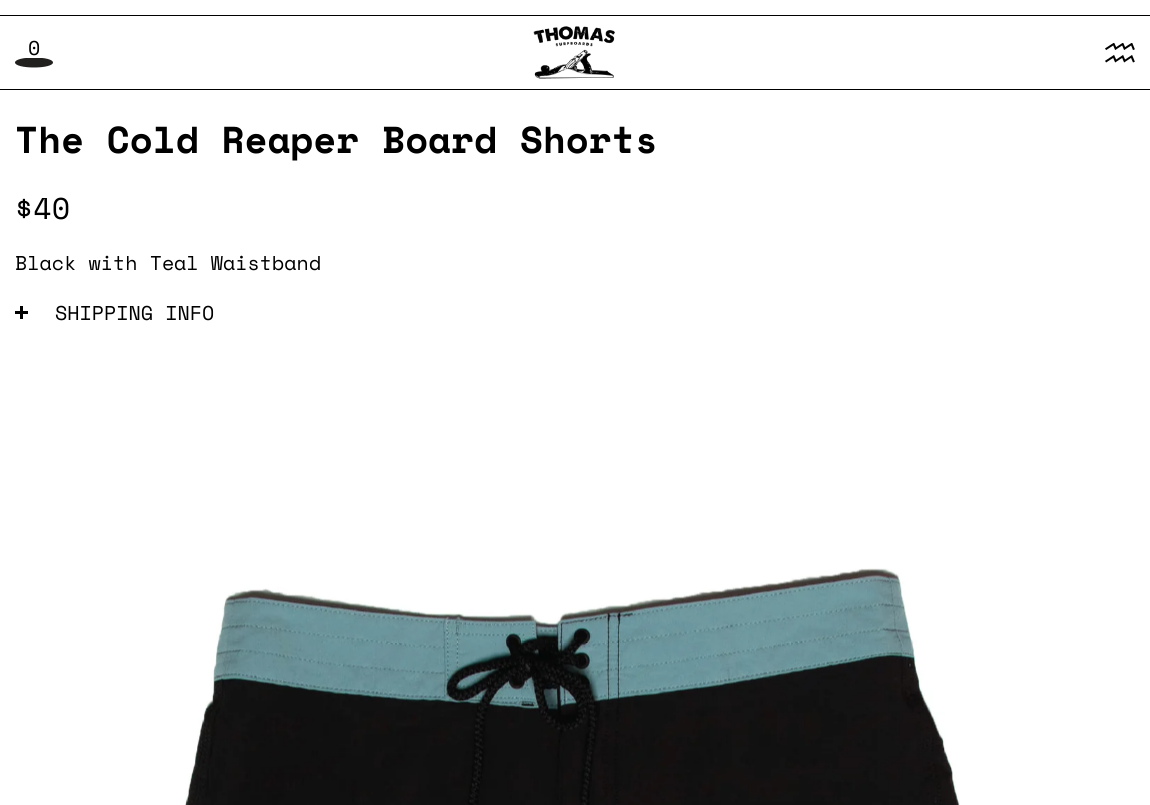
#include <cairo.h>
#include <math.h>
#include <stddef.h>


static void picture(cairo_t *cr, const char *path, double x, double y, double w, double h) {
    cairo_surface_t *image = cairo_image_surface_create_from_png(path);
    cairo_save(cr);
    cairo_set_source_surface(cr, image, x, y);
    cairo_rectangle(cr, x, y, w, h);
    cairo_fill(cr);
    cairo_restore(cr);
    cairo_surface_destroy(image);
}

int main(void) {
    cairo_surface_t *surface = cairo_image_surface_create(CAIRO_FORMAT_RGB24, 1150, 805);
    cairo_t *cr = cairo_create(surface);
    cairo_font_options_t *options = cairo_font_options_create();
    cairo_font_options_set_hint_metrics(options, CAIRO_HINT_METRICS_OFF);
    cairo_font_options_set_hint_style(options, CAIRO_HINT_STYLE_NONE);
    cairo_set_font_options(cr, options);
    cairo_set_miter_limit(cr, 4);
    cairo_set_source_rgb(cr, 1, 1, 1);
    cairo_paint(cr);
    cairo_set_source_rgb(cr, 0, 0, 0);
    cairo_rectangle(cr, 0, 15, 1150, 1);
    cairo_fill(cr);
    cairo_rectangle(cr, 0, 89, 1150, 1);
    cairo_fill(cr);
    cairo_select_font_face(cr, "Space Mono", CAIRO_FONT_SLANT_NORMAL, CAIRO_FONT_WEIGHT_NORMAL);
    cairo_set_font_size(cr, 20);
    cairo_move_to(cr, 28, 55);
    cairo_show_text(cr, "0");
    cairo_save(cr);
    cairo_rectangle(cr, 15, 58, 38, 10);
    cairo_clip(cr);
    cairo_set_source_rgb(cr, 0.133, 0.122, 0.122);
    cairo_new_path(cr);
    cairo_move_to(cr, 34, 57.5);
    cairo_curve_to(cr, 44.5, 57.5, 53, 59.5, 53, 62.5);
    cairo_curve_to(cr, 53, 65.5, 44.5, 67.5, 34, 67.5);
    cairo_curve_to(cr, 23.5, 67.5, 15, 65.5, 15, 62.5);
    cairo_curve_to(cr, 15, 59.5, 23.5, 57.5, 34, 57.5);
    cairo_close_path(cr);
    cairo_fill(cr);
    cairo_restore(cr);
    picture(cr, "img1.png", 533, 26, 82, 53);
    picture(cr, "img2.png", 1105, 43, 30, 20);
    cairo_select_font_face(cr, "Space Mono", CAIRO_FONT_SLANT_NORMAL, CAIRO_FONT_WEIGHT_BOLD);
    cairo_set_font_size(cr, 37.5);
    cairo_move_to(cr, 15, 153);
    cairo_show_text(cr, "The Cold Reaper Board Shorts");
    cairo_select_font_face(cr, "Space Mono", CAIRO_FONT_SLANT_NORMAL, CAIRO_FONT_WEIGHT_NORMAL);
    cairo_set_font_size(cr, 30);
    cairo_move_to(cr, 15, 219);
    cairo_show_text(cr, "$40");
    cairo_set_font_size(cr, 20);
    cairo_move_to(cr, 15, 270);
    cairo_show_text(cr, "Black with Teal Waistband");
    cairo_rectangle(cr, 15, 311, 13, 3);
    cairo_fill(cr);
    cairo_rectangle(cr, 20, 306, 3, 13);
    cairo_fill(cr);
    cairo_move_to(cr, 55, 320);
    cairo_show_text(cr, "SHIPPING INFO");
    picture(cr, "img3.png", 185, 568, 775, 237);
    cairo_surface_write_to_png(surface, "page.png");
    cairo_font_options_destroy(options);
    cairo_destroy(cr);
    cairo_surface_destroy(surface);
    return 0;
}
